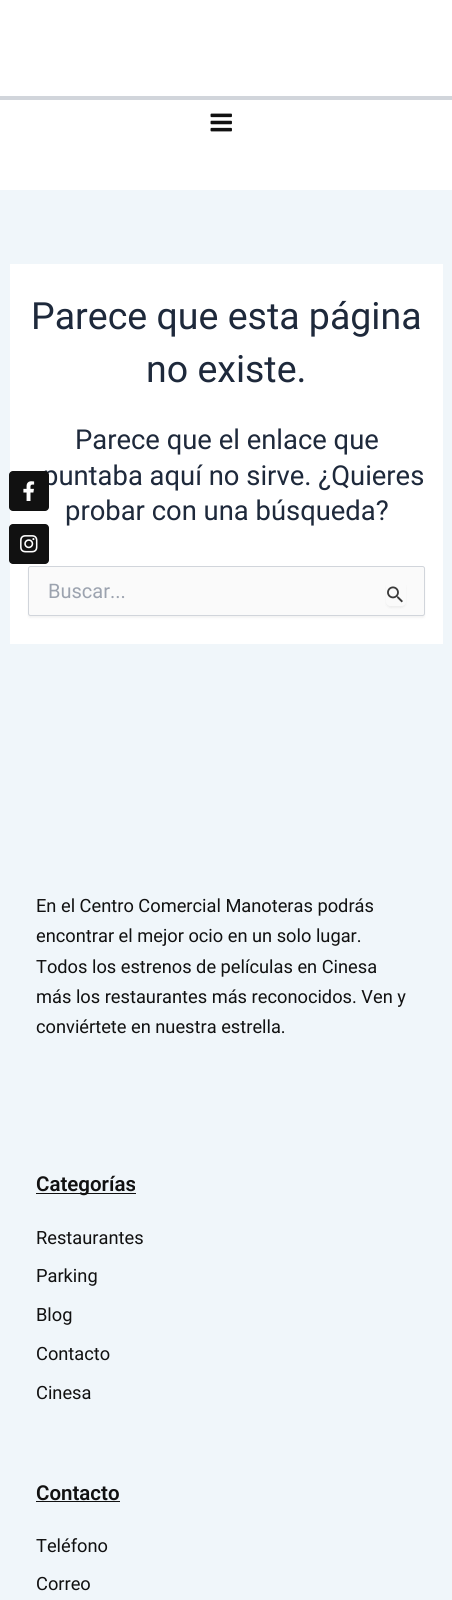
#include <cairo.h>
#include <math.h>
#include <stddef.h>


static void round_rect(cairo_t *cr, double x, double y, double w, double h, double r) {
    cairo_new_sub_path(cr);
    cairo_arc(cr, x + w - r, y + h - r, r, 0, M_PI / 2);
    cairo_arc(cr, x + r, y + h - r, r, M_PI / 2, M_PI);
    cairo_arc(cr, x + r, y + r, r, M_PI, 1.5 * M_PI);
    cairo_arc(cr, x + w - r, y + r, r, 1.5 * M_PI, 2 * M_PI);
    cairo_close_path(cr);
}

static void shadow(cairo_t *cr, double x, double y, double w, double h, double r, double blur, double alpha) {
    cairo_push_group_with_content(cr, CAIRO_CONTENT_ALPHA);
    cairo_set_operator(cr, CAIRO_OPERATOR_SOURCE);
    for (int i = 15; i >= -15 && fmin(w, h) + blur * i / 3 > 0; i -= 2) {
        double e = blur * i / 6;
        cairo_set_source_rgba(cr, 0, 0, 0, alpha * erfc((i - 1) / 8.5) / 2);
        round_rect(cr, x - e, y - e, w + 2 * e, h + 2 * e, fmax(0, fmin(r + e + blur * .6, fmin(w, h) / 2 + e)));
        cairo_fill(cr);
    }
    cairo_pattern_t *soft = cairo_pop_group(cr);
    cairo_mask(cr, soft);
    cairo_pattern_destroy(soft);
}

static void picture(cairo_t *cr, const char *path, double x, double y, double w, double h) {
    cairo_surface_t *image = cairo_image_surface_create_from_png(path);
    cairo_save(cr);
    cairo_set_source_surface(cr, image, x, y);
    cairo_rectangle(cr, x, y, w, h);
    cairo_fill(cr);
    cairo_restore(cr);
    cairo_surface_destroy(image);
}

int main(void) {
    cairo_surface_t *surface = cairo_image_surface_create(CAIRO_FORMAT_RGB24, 452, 1600);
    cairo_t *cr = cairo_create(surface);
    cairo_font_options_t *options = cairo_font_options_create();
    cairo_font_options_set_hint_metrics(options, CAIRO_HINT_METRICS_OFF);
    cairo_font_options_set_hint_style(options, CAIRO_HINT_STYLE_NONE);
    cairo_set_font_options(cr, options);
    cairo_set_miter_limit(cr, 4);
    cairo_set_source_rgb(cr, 0.941, 0.961, 0.98);
    cairo_paint(cr);
    cairo_set_source_rgb(cr, 1, 1, 1);
    cairo_rectangle(cr, 0, 0, 452, 96);
    cairo_fill(cr);
    cairo_set_source_rgb(cr, 0.82, 0.835, 0.859);
    cairo_rectangle(cr, 0, 96, 452, 4);
    cairo_fill(cr);
    cairo_set_source_rgb(cr, 1, 1, 1);
    cairo_rectangle(cr, 0, 100, 452, 90);
    cairo_fill(cr);
    picture(cr, "img1.png", 210, 113, 22, 19);
    cairo_rectangle(cr, 10, 264, 433, 380);
    cairo_fill(cr);
    cairo_select_font_face(cr, "Roboto", CAIRO_FONT_SLANT_NORMAL, CAIRO_FONT_WEIGHT_NORMAL);
    cairo_set_font_size(cr, 37.5);
    cairo_set_source_rgb(cr, 0.118, 0.161, 0.231);
    cairo_move_to(cr, 31, 329);
    cairo_show_text(cr, "Parece que esta página");
    cairo_move_to(cr, 146, 382);
    cairo_show_text(cr, "no existe.");
    cairo_set_font_size(cr, 27.4);
    cairo_move_to(cr, 75, 449);
    cairo_show_text(cr, "Parece que el enlace que");
    cairo_move_to(cr, 43, 485);
    cairo_show_text(cr, "puntaba aquí no sirve. ¿Quieres");
    cairo_move_to(cr, 65, 520);
    cairo_show_text(cr, "probar con una búsqueda?");
    cairo_set_source_rgb(cr, 0, 0, 0);
    shadow(cr, 28, 568, 397, 50, 2.5, 1, 0.05);
    cairo_set_source_rgb(cr, 0.98, 0.98, 0.98);
    round_rect(cr, 28.5, 566.5, 396, 49, 2);
    cairo_fill_preserve(cr);
    cairo_set_source_rgb(cr, 0.82, 0.835, 0.859);
    cairo_set_line_width(cr, 1);
    cairo_stroke(cr);
    cairo_set_font_size(cr, 20);
    cairo_set_source_rgb(cr, 0.612, 0.639, 0.686);
    cairo_move_to(cr, 48, 598);
    cairo_show_text(cr, "Buscar...");
    cairo_save(cr);
    cairo_set_fill_rule(cr, CAIRO_FILL_RULE_EVEN_ODD);
    cairo_new_path(cr);
    cairo_move_to(cr, 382, 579);
    cairo_line_to(cr, 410, 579);
    cairo_line_to(cr, 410, 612);
    cairo_line_to(cr, 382, 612);
    cairo_close_path(cr);
    cairo_move_to(cr, 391, 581);
    cairo_line_to(cr, 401, 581);
    cairo_curve_to(cr, 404, 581, 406, 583, 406, 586);
    cairo_line_to(cr, 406, 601);
    cairo_curve_to(cr, 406, 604, 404, 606, 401, 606);
    cairo_line_to(cr, 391, 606);
    cairo_curve_to(cr, 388, 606, 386, 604, 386, 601);
    cairo_line_to(cr, 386, 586);
    cairo_curve_to(cr, 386, 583, 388, 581, 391, 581);
    cairo_close_path(cr);
    cairo_clip(cr);
    cairo_set_source_rgb(cr, 0, 0, 0);
    shadow(cr, 386, 583, 20, 25, 5, 1, 0.05);
    cairo_restore(cr);
    picture(cr, "img2.png", 387, 586, 16, 17);
    cairo_set_source_rgb(cr, 0.067, 0.067, 0.067);
    round_rect(cr, 9, 471, 40, 40, 4);
    cairo_fill(cr);
    picture(cr, "img3.png", 23, 481, 12, 20);
    round_rect(cr, 9, 524, 40, 40, 4);
    cairo_fill(cr);
    picture(cr, "img4.png", 20, 535, 18, 18);
    cairo_set_font_size(cr, 18.25);
    cairo_move_to(cr, 36, 912);
    cairo_show_text(cr, "En el Centro Comercial Manoteras podrás");
    cairo_move_to(cr, 36, 942);
    cairo_show_text(cr, "encontrar el mejor ocio en un solo lugar.");
    cairo_move_to(cr, 36, 973);
    cairo_show_text(cr, "Todos los estrenos de películas en Cinesa");
    cairo_move_to(cr, 36, 1003);
    cairo_show_text(cr, "más los restaurantes más reconocidos. Ven y");
    cairo_move_to(cr, 36, 1033);
    cairo_show_text(cr, "conviértete en nuestra estrella.");
    cairo_rectangle(cr, 36, 1193, 100, 1);
    cairo_fill(cr);
    cairo_select_font_face(cr, "Roboto SemiBold", CAIRO_FONT_SLANT_NORMAL, CAIRO_FONT_WEIGHT_NORMAL);
    cairo_set_font_size(cr, 20.5);
    cairo_move_to(cr, 36, 1191);
    cairo_show_text(cr, "Categorías");
    cairo_select_font_face(cr, "Roboto", CAIRO_FONT_SLANT_NORMAL, CAIRO_FONT_WEIGHT_NORMAL);
    cairo_set_font_size(cr, 18.25);
    cairo_move_to(cr, 36, 1244);
    cairo_show_text(cr, "Restaurantes");
    cairo_move_to(cr, 36, 1282);
    cairo_show_text(cr, "Parking");
    cairo_move_to(cr, 36, 1321);
    cairo_show_text(cr, "Blog");
    cairo_move_to(cr, 36, 1360);
    cairo_show_text(cr, "Contacto");
    cairo_move_to(cr, 36, 1399);
    cairo_show_text(cr, "Cinesa");
    cairo_select_font_face(cr, "Roboto SemiBold", CAIRO_FONT_SLANT_NORMAL, CAIRO_FONT_WEIGHT_NORMAL);
    cairo_set_font_size(cr, 20.5);
    cairo_move_to(cr, 36, 1500);
    cairo_show_text(cr, "Contacto");
    cairo_rectangle(cr, 36, 1501, 84, 1);
    cairo_fill(cr);
    cairo_select_font_face(cr, "Roboto", CAIRO_FONT_SLANT_NORMAL, CAIRO_FONT_WEIGHT_NORMAL);
    cairo_set_font_size(cr, 18.25);
    cairo_move_to(cr, 36, 1552);
    cairo_show_text(cr, "Teléfono");
    cairo_move_to(cr, 36, 1590);
    cairo_show_text(cr, "Correo");
    cairo_surface_write_to_png(surface, "page.png");
    cairo_font_options_destroy(options);
    cairo_destroy(cr);
    cairo_surface_destroy(surface);
    return 0;
}
